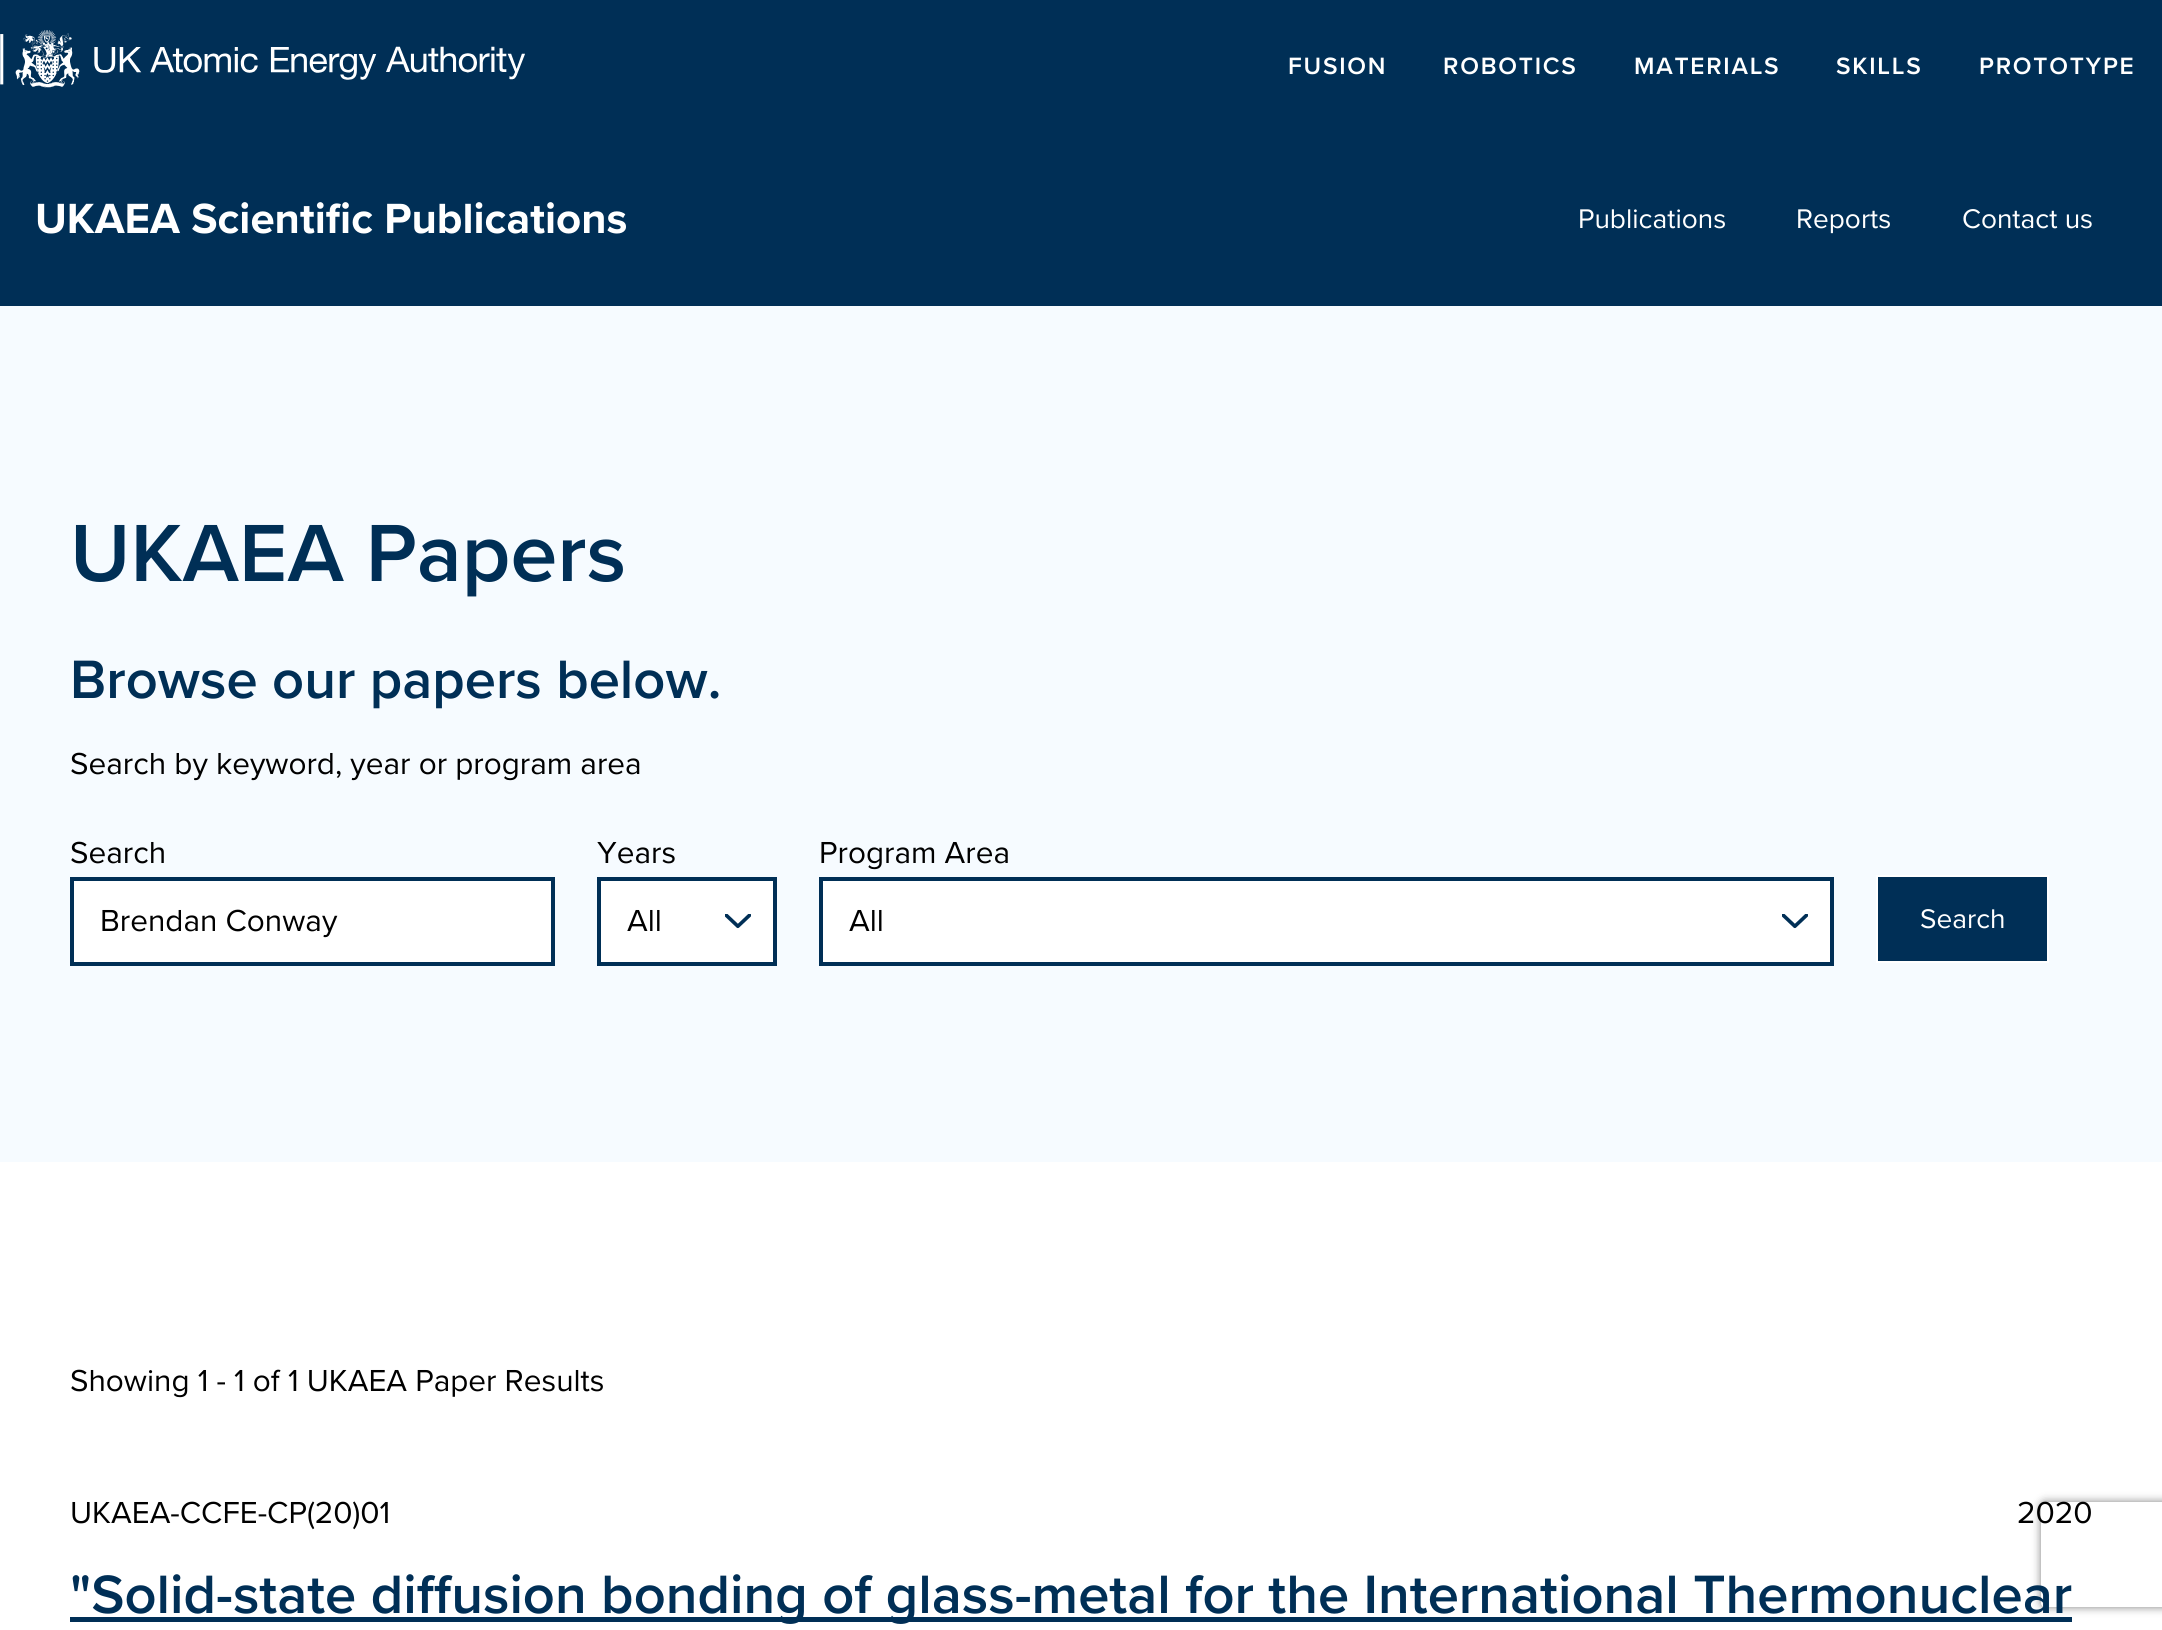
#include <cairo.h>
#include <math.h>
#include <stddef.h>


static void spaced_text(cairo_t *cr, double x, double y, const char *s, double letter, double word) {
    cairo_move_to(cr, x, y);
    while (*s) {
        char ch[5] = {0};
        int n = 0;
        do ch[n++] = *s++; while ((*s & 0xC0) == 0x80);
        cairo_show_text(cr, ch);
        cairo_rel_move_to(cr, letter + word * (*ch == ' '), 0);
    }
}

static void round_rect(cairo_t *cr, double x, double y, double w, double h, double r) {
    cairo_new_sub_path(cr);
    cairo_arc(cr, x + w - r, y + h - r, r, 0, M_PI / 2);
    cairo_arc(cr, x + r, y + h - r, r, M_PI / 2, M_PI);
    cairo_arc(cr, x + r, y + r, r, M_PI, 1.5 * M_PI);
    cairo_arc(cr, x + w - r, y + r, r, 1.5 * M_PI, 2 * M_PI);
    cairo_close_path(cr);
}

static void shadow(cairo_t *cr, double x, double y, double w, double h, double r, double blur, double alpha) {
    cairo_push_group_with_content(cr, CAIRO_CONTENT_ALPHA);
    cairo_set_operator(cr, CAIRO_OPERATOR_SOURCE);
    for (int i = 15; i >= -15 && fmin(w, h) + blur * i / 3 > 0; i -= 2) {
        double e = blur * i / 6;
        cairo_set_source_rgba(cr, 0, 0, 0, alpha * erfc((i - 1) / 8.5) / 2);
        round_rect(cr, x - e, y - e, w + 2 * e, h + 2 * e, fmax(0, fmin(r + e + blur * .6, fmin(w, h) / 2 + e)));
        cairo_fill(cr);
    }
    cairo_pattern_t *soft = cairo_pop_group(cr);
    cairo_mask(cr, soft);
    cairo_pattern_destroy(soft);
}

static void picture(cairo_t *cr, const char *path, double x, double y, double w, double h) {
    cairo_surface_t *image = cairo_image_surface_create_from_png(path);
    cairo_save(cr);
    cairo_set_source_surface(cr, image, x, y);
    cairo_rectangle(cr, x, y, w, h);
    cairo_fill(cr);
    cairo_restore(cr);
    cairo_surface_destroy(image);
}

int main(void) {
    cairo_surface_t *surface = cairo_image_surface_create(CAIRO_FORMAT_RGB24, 2162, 1630);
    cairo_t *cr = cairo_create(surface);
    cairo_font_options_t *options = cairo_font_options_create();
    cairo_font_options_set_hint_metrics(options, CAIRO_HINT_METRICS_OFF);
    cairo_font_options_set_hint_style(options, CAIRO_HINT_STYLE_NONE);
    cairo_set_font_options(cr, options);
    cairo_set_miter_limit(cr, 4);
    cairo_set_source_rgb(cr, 1, 1, 1);
    cairo_paint(cr);
    cairo_set_source_rgb(cr, 0, 0.184, 0.337);
    cairo_rectangle(cr, 0, 0, 2162, 306);
    cairo_fill(cr);
    picture(cr, "img1.png", 0, 30, 525, 58);
    cairo_select_font_face(cr, "Proxima Nova SemiBold", CAIRO_FONT_SLANT_NORMAL, CAIRO_FONT_WEIGHT_NORMAL);
    cairo_set_font_size(cr, 24.5);
    cairo_set_source_rgb(cr, 1, 1, 1);
    spaced_text(cr, 1288, 74, "FUSION", 1.75, 0);
    spaced_text(cr, 1443, 74, "ROBOTICS", 1.75, 0);
    spaced_text(cr, 1634, 74, "MATERIALS", 1.75, 0);
    spaced_text(cr, 1836, 74, "SKILLS", 1.75, 0);
    spaced_text(cr, 1979, 74, "PROTOTYPE", 1.75, 0);
    cairo_select_font_face(cr, "Proxima Nova", CAIRO_FONT_SLANT_NORMAL, CAIRO_FONT_WEIGHT_BOLD);
    cairo_set_font_size(cr, 43.75);
    cairo_move_to(cr, 35, 233);
    cairo_show_text(cr, "UKAEA Scientific Publications");
    cairo_select_font_face(cr, "Proxima Nova", CAIRO_FONT_SLANT_NORMAL, CAIRO_FONT_WEIGHT_NORMAL);
    cairo_set_font_size(cr, 28);
    cairo_move_to(cr, 1578, 228);
    cairo_show_text(cr, "Publications");
    cairo_move_to(cr, 1796, 228);
    cairo_show_text(cr, "Reports");
    cairo_move_to(cr, 1962, 228);
    cairo_show_text(cr, "Contact us");
    cairo_set_source_rgb(cr, 0.961, 0.984, 1);
    cairo_rectangle(cr, 0, 306, 2162, 856);
    cairo_fill(cr);
    cairo_select_font_face(cr, "Proxima Nova SemiBold", CAIRO_FONT_SLANT_NORMAL, CAIRO_FONT_WEIGHT_NORMAL);
    cairo_set_font_size(cr, 84);
    cairo_set_source_rgb(cr, 0, 0.184, 0.337);
    cairo_move_to(cr, 70, 581);
    cairo_show_text(cr, "UKAEA Papers");
    cairo_set_font_size(cr, 56);
    cairo_move_to(cr, 70, 698);
    cairo_show_text(cr, "Browse our papers below.");
    cairo_select_font_face(cr, "Proxima Nova", CAIRO_FONT_SLANT_NORMAL, CAIRO_FONT_WEIGHT_NORMAL);
    cairo_set_font_size(cr, 31.5);
    cairo_set_source_rgb(cr, 0, 0, 0);
    cairo_move_to(cr, 70, 774);
    cairo_show_text(cr, "Search by keyword, year or program area");
    cairo_move_to(cr, 70, 863);
    cairo_show_text(cr, "Search");
    cairo_set_source_rgb(cr, 1, 1, 1);
    cairo_rectangle(cr, 72, 879, 481, 85);
    cairo_fill_preserve(cr);
    cairo_set_source_rgb(cr, 0, 0.184, 0.337);
    cairo_set_line_width(cr, 4);
    cairo_stroke(cr);
    cairo_set_source_rgb(cr, 0, 0, 0);
    cairo_move_to(cr, 100, 931);
    cairo_show_text(cr, "Brendan Conway");
    cairo_move_to(cr, 597, 863);
    cairo_show_text(cr, "Years");
    cairo_set_source_rgb(cr, 1, 1, 1);
    cairo_rectangle(cr, 601, 881, 172, 81);
    cairo_fill(cr);
    picture(cr, "img2.png", 725, 914, 26, 15);
    cairo_rectangle(cr, 599, 879, 176, 85);
    cairo_set_source_rgb(cr, 0, 0.184, 0.337);
    cairo_stroke(cr);
    cairo_set_source_rgb(cr, 0, 0, 0);
    cairo_move_to(cr, 627, 931);
    cairo_show_text(cr, "All");
    cairo_move_to(cr, 819, 863);
    cairo_show_text(cr, "Program Area");
    cairo_set_source_rgb(cr, 1, 1, 1);
    cairo_rectangle(cr, 823, 881, 1007, 81);
    cairo_fill(cr);
    picture(cr, "img2.png", 1782, 914, 26, 15);
    cairo_rectangle(cr, 821, 879, 1011, 85);
    cairo_set_source_rgb(cr, 0, 0.184, 0.337);
    cairo_stroke(cr);
    cairo_set_source_rgb(cr, 0, 0, 0);
    cairo_move_to(cr, 849, 931);
    cairo_show_text(cr, "All");
    cairo_set_source_rgb(cr, 0, 0.184, 0.337);
    cairo_rectangle(cr, 1877, 876, 171, 86);
    cairo_fill_preserve(cr);
    cairo_set_source_rgb(cr, 1, 1, 1);
    cairo_set_line_width(cr, 2);
    cairo_stroke(cr);
    cairo_set_font_size(cr, 28);
    cairo_move_to(cr, 1920, 928);
    cairo_show_text(cr, "Search");
    cairo_set_font_size(cr, 31.5);
    cairo_set_source_rgb(cr, 0, 0, 0);
    cairo_move_to(cr, 70, 1391);
    cairo_show_text(cr, "Showing 1 - 1 of 1 UKAEA Paper Results");
    cairo_move_to(cr, 70, 1523);
    cairo_show_text(cr, "UKAEA-CCFE-CP(20)01");
    cairo_save(cr);
    cairo_set_fill_rule(cr, CAIRO_FILL_RULE_EVEN_ODD);
    cairo_new_path(cr);
    cairo_move_to(cr, 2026, 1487);
    cairo_line_to(cr, 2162, 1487);
    cairo_line_to(cr, 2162, 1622);
    cairo_line_to(cr, 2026, 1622);
    cairo_close_path(cr);
    cairo_move_to(cr, 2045, 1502);
    cairo_line_to(cr, 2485, 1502);
    cairo_curve_to(cr, 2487, 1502, 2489, 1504, 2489, 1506);
    cairo_line_to(cr, 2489, 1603);
    cairo_curve_to(cr, 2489, 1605, 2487, 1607, 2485, 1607);
    cairo_line_to(cr, 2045, 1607);
    cairo_curve_to(cr, 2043, 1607, 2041, 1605, 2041, 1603);
    cairo_line_to(cr, 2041, 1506);
    cairo_curve_to(cr, 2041, 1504, 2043, 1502, 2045, 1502);
    cairo_close_path(cr);
    cairo_clip(cr);
    cairo_set_source_rgb(cr, 0.502, 0.502, 0.502);
    shadow(cr, 2041, 1502, 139, 105, 4, 4.5, 1);
    cairo_restore(cr);
    cairo_move_to(cr, 2017, 1523);
    cairo_show_text(cr, "2020");
    cairo_set_source_rgb(cr, 0, 0.184, 0.337);
    cairo_rectangle(cr, 70, 1617, 2002, 5);
    cairo_fill(cr);
    cairo_select_font_face(cr, "Proxima Nova SemiBold", CAIRO_FONT_SLANT_NORMAL, CAIRO_FONT_WEIGHT_NORMAL);
    cairo_set_font_size(cr, 56);
    cairo_move_to(cr, 70, 1613);
    cairo_show_text(cr, "\"Solid-state diffusion bonding of glass-metal for the International Thermonuclear");
    cairo_surface_write_to_png(surface, "page.png");
    cairo_font_options_destroy(options);
    cairo_destroy(cr);
    cairo_surface_destroy(surface);
    return 0;
}
